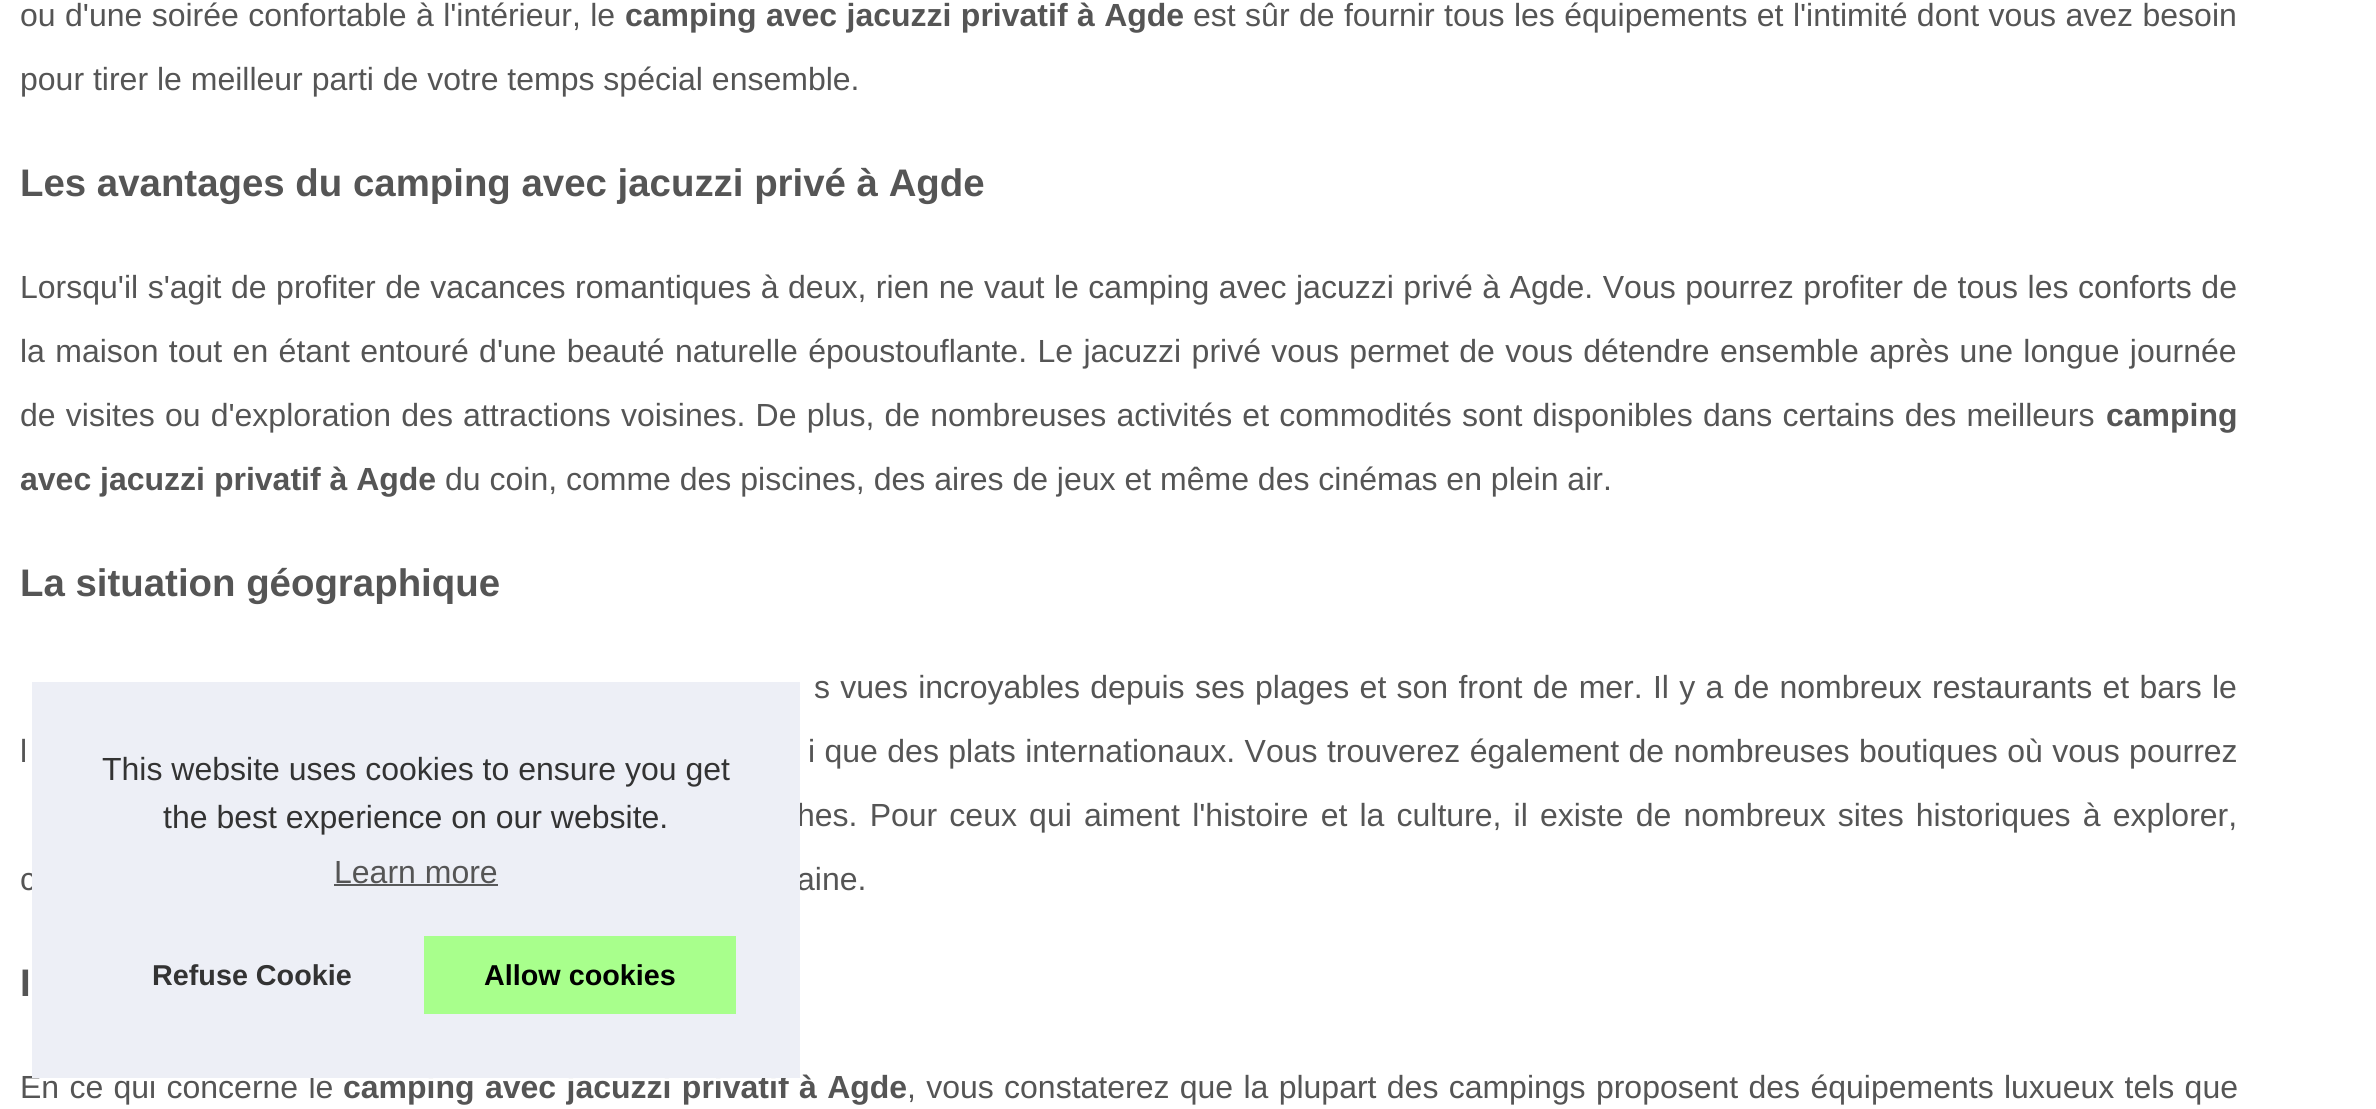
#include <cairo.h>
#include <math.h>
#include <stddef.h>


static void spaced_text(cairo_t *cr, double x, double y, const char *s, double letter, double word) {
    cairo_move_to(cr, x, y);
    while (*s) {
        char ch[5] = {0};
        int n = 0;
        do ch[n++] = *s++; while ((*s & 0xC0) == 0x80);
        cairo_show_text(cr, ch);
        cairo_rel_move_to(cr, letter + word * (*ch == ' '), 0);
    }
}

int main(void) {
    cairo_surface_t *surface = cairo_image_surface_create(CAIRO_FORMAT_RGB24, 2376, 1109);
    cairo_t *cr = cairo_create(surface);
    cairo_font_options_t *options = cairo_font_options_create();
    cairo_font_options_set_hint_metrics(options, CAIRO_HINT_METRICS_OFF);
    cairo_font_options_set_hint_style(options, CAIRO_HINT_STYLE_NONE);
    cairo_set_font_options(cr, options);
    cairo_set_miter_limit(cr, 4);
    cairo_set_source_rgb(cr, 1, 1, 1);
    cairo_paint(cr);
    cairo_select_font_face(cr, "Liberation Sans", CAIRO_FONT_SLANT_NORMAL, CAIRO_FONT_WEIGHT_NORMAL);
    cairo_set_font_size(cr, 32);
    cairo_set_source_rgb(cr, 0.333, 0.333, 0.333);
    spaced_text(cr, 20, 26, "ou d'une soirée confortable à l'intérieur, le", 0, 0.5);
    cairo_select_font_face(cr, "Liberation Sans", CAIRO_FONT_SLANT_NORMAL, CAIRO_FONT_WEIGHT_BOLD);
    spaced_text(cr, 625, 26, "camping avec jacuzzi privatif à Agde", 0, 0.5);
    cairo_select_font_face(cr, "Liberation Sans", CAIRO_FONT_SLANT_NORMAL, CAIRO_FONT_WEIGHT_NORMAL);
    spaced_text(cr, 1193, 26, "est sûr de fournir tous les équipements et l'intimité dont vous avez besoin", 0, 0.5);
    cairo_move_to(cr, 20, 90);
    cairo_show_text(cr, "pour tirer le meilleur parti de votre temps spécial ensemble.");
    cairo_select_font_face(cr, "Liberation Sans", CAIRO_FONT_SLANT_NORMAL, CAIRO_FONT_WEIGHT_BOLD);
    cairo_set_font_size(cr, 38.4);
    cairo_move_to(cr, 20, 196);
    cairo_show_text(cr, "Les avantages du camping avec jacuzzi privé à Agde");
    cairo_select_font_face(cr, "Liberation Sans", CAIRO_FONT_SLANT_NORMAL, CAIRO_FONT_WEIGHT_NORMAL);
    cairo_set_font_size(cr, 32);
    spaced_text(cr, 20, 298, "Lorsqu'il s'agit de profiter de vacances romantiques à deux, rien ne vaut le camping avec jacuzzi privé à Agde. Vous pourrez profiter de tous les conforts de", 0, 0.65);
    spaced_text(cr, 20, 362, "la maison tout en étant entouré d'une beauté naturelle époustouflante. Le jacuzzi privé vous permet de vous détendre ensemble après une longue journée", 0, 1.5);
    spaced_text(cr, 20, 426, "de visites ou d'exploration des attractions voisines. De plus, de nombreuses activités et commodités sont disponibles dans certains des meilleurs", 0, 1.3);
    cairo_select_font_face(cr, "Liberation Sans", CAIRO_FONT_SLANT_NORMAL, CAIRO_FONT_WEIGHT_BOLD);
    cairo_move_to(cr, 2106, 426);
    cairo_show_text(cr, "camping");
    cairo_move_to(cr, 20, 490);
    cairo_show_text(cr, "avec jacuzzi privatif à Agde");
    cairo_select_font_face(cr, "Liberation Sans", CAIRO_FONT_SLANT_NORMAL, CAIRO_FONT_WEIGHT_NORMAL);
    cairo_move_to(cr, 445, 490);
    cairo_show_text(cr, "du coin, comme des piscines, des aires de jeux et même des cinémas en plein air.");
    cairo_select_font_face(cr, "Liberation Sans", CAIRO_FONT_SLANT_NORMAL, CAIRO_FONT_WEIGHT_BOLD);
    cairo_set_font_size(cr, 38.4);
    cairo_move_to(cr, 20, 596);
    cairo_show_text(cr, "La situation géographique");
    cairo_select_font_face(cr, "Liberation Sans", CAIRO_FONT_SLANT_NORMAL, CAIRO_FONT_WEIGHT_NORMAL);
    cairo_set_font_size(cr, 32);
    spaced_text(cr, 814, 698, "s vues incroyables depuis ses plages et son front de mer. Il y a de nombreux restaurants et bars le", 0, 1.4);
    spaced_text(cr, 20, 762, "l", 0, 0.5);
    spaced_text(cr, 808, 762, "i que des plats internationaux. Vous trouverez également de nombreuses boutiques où vous pourrez", 0, 0.5);
    spaced_text(cr, 797, 826, "hes. Pour ceux qui aiment l'histoire et la culture, il existe de nombreux sites historiques à explorer,", 0, 3.25);
    cairo_move_to(cr, 20, 890);
    cairo_show_text(cr, "c");
    cairo_move_to(cr, 797, 890);
    cairo_show_text(cr, "aine.");
    cairo_select_font_face(cr, "Liberation Sans", CAIRO_FONT_SLANT_NORMAL, CAIRO_FONT_WEIGHT_BOLD);
    cairo_set_font_size(cr, 38.4);
    cairo_move_to(cr, 20, 996);
    cairo_show_text(cr, "I");
    cairo_select_font_face(cr, "Liberation Sans", CAIRO_FONT_SLANT_NORMAL, CAIRO_FONT_WEIGHT_NORMAL);
    cairo_set_font_size(cr, 32);
    spaced_text(cr, 20, 1098, "En ce qui concerne le", 0, 1.4);
    cairo_select_font_face(cr, "Liberation Sans", CAIRO_FONT_SLANT_NORMAL, CAIRO_FONT_WEIGHT_BOLD);
    spaced_text(cr, 343, 1098, "camping avec jacuzzi privatif à Agde", 0, 1.5);
    cairo_select_font_face(cr, "Liberation Sans", CAIRO_FONT_SLANT_NORMAL, CAIRO_FONT_WEIGHT_NORMAL);
    spaced_text(cr, 907, 1098, ", vous constaterez que la plupart des campings proposent des équipements luxueux tels que", 0, 1.4);
    cairo_set_source_rgb(cr, 0.929, 0.937, 0.961);
    cairo_rectangle(cr, 32, 682, 768, 396);
    cairo_fill(cr);
    cairo_set_source_rgb(cr, 0.2, 0.2, 0.2);
    cairo_move_to(cr, 102, 780);
    cairo_show_text(cr, "This website uses cookies to ensure you get");
    cairo_move_to(cr, 163, 828);
    cairo_show_text(cr, "the best experience on our website.");
    cairo_set_source_rgb(cr, 0.333, 0.333, 0.333);
    cairo_move_to(cr, 334, 883);
    cairo_show_text(cr, "Learn more");
    cairo_set_source_rgb(cr, 0.345, 0.349, 0.353);
    cairo_rectangle(cr, 334, 884, 164, 2);
    cairo_fill(cr);
    cairo_select_font_face(cr, "Liberation Sans", CAIRO_FONT_SLANT_NORMAL, CAIRO_FONT_WEIGHT_BOLD);
    cairo_set_font_size(cr, 28.75);
    cairo_set_source_rgb(cr, 0.2, 0.2, 0.2);
    cairo_move_to(cr, 152, 985);
    cairo_show_text(cr, "Refuse Cookie");
    cairo_set_source_rgb(cr, 0.659, 1, 0.549);
    cairo_rectangle(cr, 424, 936, 312, 78);
    cairo_fill(cr);
    cairo_set_source_rgb(cr, 0, 0, 0);
    cairo_move_to(cr, 484, 985);
    cairo_show_text(cr, "Allow cookies");
    cairo_surface_write_to_png(surface, "page.png");
    cairo_font_options_destroy(options);
    cairo_destroy(cr);
    cairo_surface_destroy(surface);
    return 0;
}
